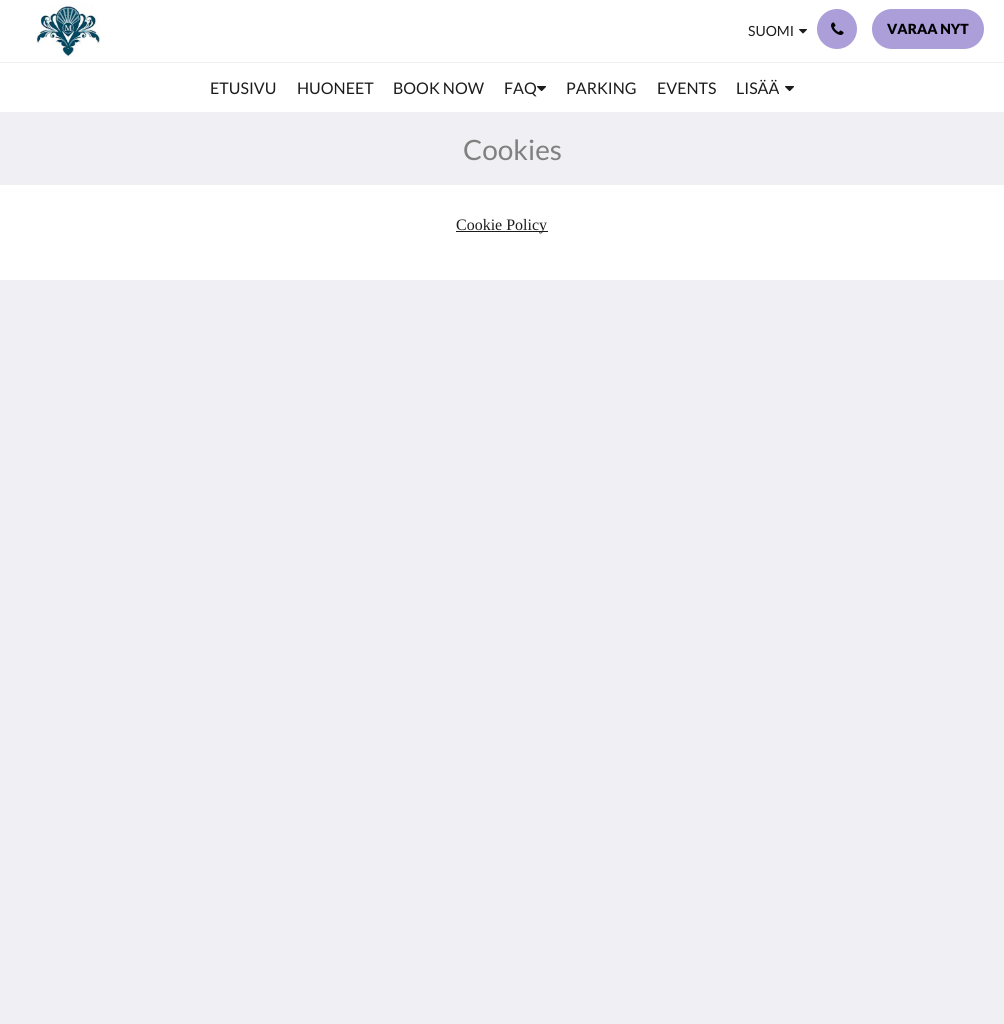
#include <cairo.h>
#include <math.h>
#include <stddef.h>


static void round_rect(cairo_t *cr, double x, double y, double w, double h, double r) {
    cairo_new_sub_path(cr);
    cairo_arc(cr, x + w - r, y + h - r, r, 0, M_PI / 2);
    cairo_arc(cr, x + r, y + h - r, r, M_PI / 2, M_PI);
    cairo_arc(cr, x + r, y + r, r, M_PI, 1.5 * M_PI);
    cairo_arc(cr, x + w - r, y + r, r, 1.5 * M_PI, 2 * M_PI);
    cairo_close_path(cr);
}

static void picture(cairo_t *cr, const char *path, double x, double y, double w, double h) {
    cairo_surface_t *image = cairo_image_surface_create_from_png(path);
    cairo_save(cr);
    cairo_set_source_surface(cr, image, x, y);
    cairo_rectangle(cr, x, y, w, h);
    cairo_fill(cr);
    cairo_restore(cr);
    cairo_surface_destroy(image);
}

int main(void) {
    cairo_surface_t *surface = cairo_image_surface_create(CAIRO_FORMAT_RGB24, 1004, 1024);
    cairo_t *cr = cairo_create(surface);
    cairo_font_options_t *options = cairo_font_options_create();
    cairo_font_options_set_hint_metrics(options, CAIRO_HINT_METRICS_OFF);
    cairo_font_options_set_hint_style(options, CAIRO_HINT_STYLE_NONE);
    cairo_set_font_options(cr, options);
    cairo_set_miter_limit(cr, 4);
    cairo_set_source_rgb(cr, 0.937, 0.937, 0.957);
    cairo_paint(cr);
    cairo_set_source_rgb(cr, 1, 1, 1);
    cairo_rectangle(cr, 0, 0, 1004, 62);
    cairo_fill(cr);
    picture(cr, "img1.png", 35, 5, 67, 52);
    cairo_select_font_face(cr, "Lato", CAIRO_FONT_SLANT_NORMAL, CAIRO_FONT_WEIGHT_NORMAL);
    cairo_set_font_size(cr, 14);
    cairo_set_source_rgb(cr, 0.11, 0.11, 0.11);
    cairo_move_to(cr, 748, 36);
    cairo_show_text(cr, "SUOMI");
    picture(cr, "img2.png", 799, 29, 8, 5);
    cairo_set_source_rgb(cr, 0.671, 0.62, 0.851);
    cairo_arc(cr, 837, 29, 20, 0, 2 * M_PI);
    cairo_fill(cr);
    picture(cr, "img3.png", 831, 22, 13, 13);
    round_rect(cr, 872, 9, 112, 40, 20);
    cairo_fill(cr);
    cairo_select_font_face(cr, "Lato Black", CAIRO_FONT_SLANT_NORMAL, CAIRO_FONT_WEIGHT_NORMAL);
    cairo_set_source_rgb(cr, 0, 0, 0);
    cairo_move_to(cr, 887, 34);
    cairo_show_text(cr, "VARAA NYT");
    cairo_set_source_rgb(cr, 1, 1, 1);
    cairo_rectangle(cr, 0, 63, 1004, 49);
    cairo_fill(cr);
    cairo_select_font_face(cr, "Lato", CAIRO_FONT_SLANT_NORMAL, CAIRO_FONT_WEIGHT_NORMAL);
    cairo_set_font_size(cr, 16);
    cairo_set_source_rgb(cr, 0.11, 0.11, 0.11);
    cairo_move_to(cr, 210, 94);
    cairo_show_text(cr, "ETUSIVU");
    cairo_move_to(cr, 297, 94);
    cairo_show_text(cr, "HUONEET");
    cairo_move_to(cr, 393, 94);
    cairo_show_text(cr, "BOOK NOW");
    cairo_move_to(cr, 504, 94);
    cairo_show_text(cr, "FAQ");
    picture(cr, "img4.png", 537, 86, 10, 6);
    cairo_move_to(cr, 566, 94);
    cairo_show_text(cr, "PARKING");
    cairo_move_to(cr, 657, 94);
    cairo_show_text(cr, "EVENTS");
    cairo_move_to(cr, 736, 94);
    cairo_show_text(cr, "LISÄÄ");
    picture(cr, "img4.png", 785, 86, 10, 6);
    cairo_set_font_size(cr, 28);
    cairo_set_source_rgb(cr, 0.502, 0.502, 0.502);
    cairo_move_to(cr, 463, 160);
    cairo_show_text(cr, "Cookies");
    cairo_set_source_rgb(cr, 1, 1, 1);
    cairo_rectangle(cr, 0, 185, 1004, 95);
    cairo_fill(cr);
    cairo_set_source_rgb(cr, 0.11, 0.11, 0.11);
    cairo_rectangle(cr, 456, 231, 92, 1);
    cairo_fill(cr);
    cairo_select_font_face(cr, "Liberation Serif", CAIRO_FONT_SLANT_NORMAL, CAIRO_FONT_WEIGHT_NORMAL);
    cairo_set_font_size(cr, 16);
    cairo_move_to(cr, 456, 230);
    cairo_show_text(cr, "Cookie Policy");
    cairo_surface_write_to_png(surface, "page.png");
    cairo_font_options_destroy(options);
    cairo_destroy(cr);
    cairo_surface_destroy(surface);
    return 0;
}
